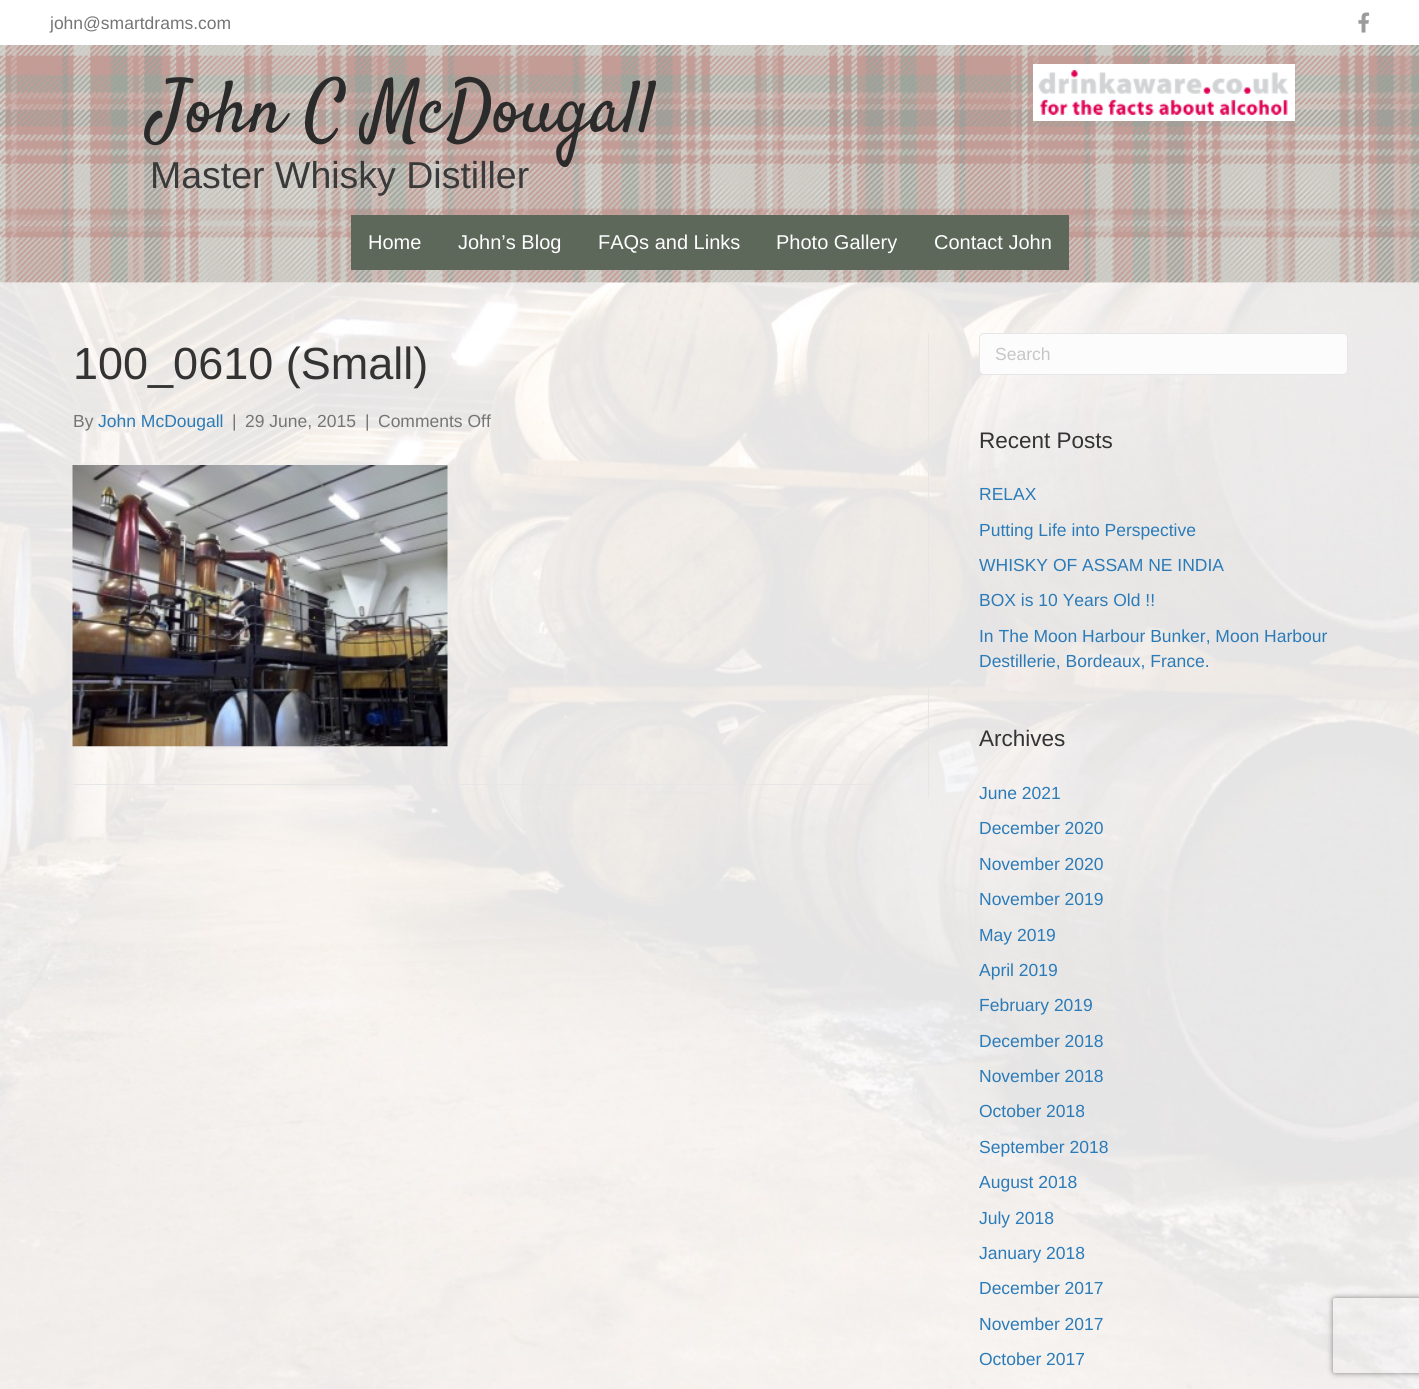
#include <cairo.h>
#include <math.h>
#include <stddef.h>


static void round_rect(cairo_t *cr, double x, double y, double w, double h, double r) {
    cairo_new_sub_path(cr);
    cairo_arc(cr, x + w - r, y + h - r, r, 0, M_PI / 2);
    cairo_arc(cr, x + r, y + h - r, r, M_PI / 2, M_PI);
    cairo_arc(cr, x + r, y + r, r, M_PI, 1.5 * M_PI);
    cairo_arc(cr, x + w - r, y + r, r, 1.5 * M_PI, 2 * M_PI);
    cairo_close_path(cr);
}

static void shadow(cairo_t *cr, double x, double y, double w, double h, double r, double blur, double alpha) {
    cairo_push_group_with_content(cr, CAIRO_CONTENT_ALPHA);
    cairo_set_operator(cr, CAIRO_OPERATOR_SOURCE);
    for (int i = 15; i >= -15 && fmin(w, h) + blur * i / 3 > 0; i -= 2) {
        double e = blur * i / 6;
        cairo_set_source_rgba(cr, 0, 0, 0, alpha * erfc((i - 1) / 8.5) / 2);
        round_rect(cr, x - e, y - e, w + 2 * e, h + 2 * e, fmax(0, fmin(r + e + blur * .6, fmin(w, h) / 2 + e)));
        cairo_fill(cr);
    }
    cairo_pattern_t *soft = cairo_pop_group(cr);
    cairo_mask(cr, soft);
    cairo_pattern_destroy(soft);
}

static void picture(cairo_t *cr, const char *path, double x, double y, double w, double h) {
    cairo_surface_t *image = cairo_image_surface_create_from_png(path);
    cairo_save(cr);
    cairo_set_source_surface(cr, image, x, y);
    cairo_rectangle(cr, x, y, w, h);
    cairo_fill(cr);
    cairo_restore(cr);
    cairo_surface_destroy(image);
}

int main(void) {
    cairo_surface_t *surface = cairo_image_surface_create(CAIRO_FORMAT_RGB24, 1419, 1389);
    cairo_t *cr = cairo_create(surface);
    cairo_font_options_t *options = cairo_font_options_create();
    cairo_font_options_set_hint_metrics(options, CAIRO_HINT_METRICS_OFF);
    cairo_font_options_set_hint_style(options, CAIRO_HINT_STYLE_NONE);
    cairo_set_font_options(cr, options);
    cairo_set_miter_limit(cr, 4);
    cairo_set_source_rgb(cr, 1, 1, 1);
    cairo_paint(cr);
    cairo_select_font_face(cr, "Liberation Sans", CAIRO_FONT_SLANT_NORMAL, CAIRO_FONT_WEIGHT_NORMAL);
    cairo_set_font_size(cr, 17.5);
    cairo_set_source_rgb(cr, 0.459, 0.459, 0.459);
    cairo_move_to(cr, 50, 29);
    cairo_show_text(cr, "john@smartdrams.com");
    picture(cr, "img1.png", 1358, 12, 12, 21);
    picture(cr, "img4.png", 0, 282, 1419, 1107);
    picture(cr, "img2.png", 0, 45, 1419, 238);
    cairo_set_source_rgba(cr, 1, 1, 1, 0.57);
    cairo_rectangle(cr, 0, 45, 1419, 238);
    cairo_fill(cr);
    cairo_select_font_face(cr, "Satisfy", CAIRO_FONT_SLANT_NORMAL, CAIRO_FONT_WEIGHT_NORMAL);
    cairo_set_font_size(cr, 73.75);
    cairo_set_source_rgb(cr, 0.169, 0.169, 0.169);
    cairo_move_to(cr, 150, 131);
    cairo_show_text(cr, "John C McDougall");
    cairo_select_font_face(cr, "Liberation Sans", CAIRO_FONT_SLANT_NORMAL, CAIRO_FONT_WEIGHT_NORMAL);
    cairo_set_font_size(cr, 37.5);
    cairo_set_source_rgb(cr, 0.227, 0.227, 0.227);
    cairo_move_to(cr, 150, 188);
    cairo_show_text(cr, "Master Whisky Distiller");
    cairo_set_source_rgb(cr, 1, 1, 1);
    cairo_rectangle(cr, 1033, 64, 262, 57);
    cairo_fill(cr);
    picture(cr, "img3.png", 1038, 70, 251, 45);
    cairo_set_source_rgb(cr, 0.365, 0.408, 0.357);
    cairo_rectangle(cr, 351, 215, 718, 55);
    cairo_fill(cr);
    cairo_set_font_size(cr, 20);
    cairo_set_source_rgb(cr, 1, 1, 1);
    cairo_move_to(cr, 368, 249);
    cairo_show_text(cr, "Home");
    cairo_move_to(cr, 458, 249);
    cairo_show_text(cr, "John’s Blog");
    cairo_move_to(cr, 598, 249);
    cairo_show_text(cr, "FAQs and Links");
    cairo_move_to(cr, 776, 249);
    cairo_show_text(cr, "Photo Gallery");
    cairo_move_to(cr, 934, 249);
    cairo_show_text(cr, "Contact John");
    cairo_set_source_rgb(cr, 0.902, 0.902, 0.902);
    cairo_rectangle(cr, 928, 333, 1, 465);
    cairo_fill(cr);
    cairo_set_font_size(cr, 45);
    cairo_set_source_rgb(cr, 0.2, 0.2, 0.2);
    cairo_move_to(cr, 73, 379);
    cairo_show_text(cr, "100_0610 (Small)");
    cairo_set_font_size(cr, 17.5);
    cairo_set_source_rgb(cr, 0.459, 0.459, 0.459);
    cairo_move_to(cr, 73, 427);
    cairo_show_text(cr, "By");
    cairo_set_source_rgb(cr, 0.169, 0.482, 0.725);
    cairo_move_to(cr, 98, 427);
    cairo_show_text(cr, "John McDougall");
    cairo_set_source_rgb(cr, 0.459, 0.459, 0.459);
    cairo_move_to(cr, 232, 427);
    cairo_show_text(cr, "|");
    cairo_move_to(cr, 245, 427);
    cairo_show_text(cr, "29 June, 2015");
    cairo_move_to(cr, 365, 427);
    cairo_show_text(cr, "|");
    cairo_move_to(cr, 378, 427);
    cairo_show_text(cr, "Comments Off");
    picture(cr, "img5.png", 72, 465, 376, 282);
    cairo_set_source_rgb(cr, 0.902, 0.902, 0.902);
    cairo_rectangle(cr, 73, 784, 805, 1);
    cairo_fill(cr);
    cairo_set_source_rgb(cr, 0.988, 0.988, 0.988);
    round_rect(cr, 979.5, 333.5, 368, 41, 4.5);
    cairo_fill_preserve(cr);
    cairo_set_source_rgb(cr, 0.902, 0.902, 0.902);
    cairo_set_line_width(cr, 1);
    cairo_stroke(cr);
    cairo_set_source_rgb(cr, 0.776, 0.776, 0.776);
    cairo_move_to(cr, 995, 360);
    cairo_show_text(cr, "Search");
    cairo_set_font_size(cr, 22.5);
    cairo_set_source_rgb(cr, 0.2, 0.2, 0.2);
    cairo_move_to(cr, 979, 448);
    cairo_show_text(cr, "Recent Posts");
    cairo_set_font_size(cr, 17.5);
    cairo_set_source_rgb(cr, 0.169, 0.482, 0.725);
    cairo_move_to(cr, 979, 500);
    cairo_show_text(cr, "RELAX");
    cairo_move_to(cr, 979, 536);
    cairo_show_text(cr, "Putting Life into Perspective");
    cairo_move_to(cr, 979, 571);
    cairo_show_text(cr, "WHISKY OF ASSAM NE INDIA");
    cairo_move_to(cr, 979, 606);
    cairo_show_text(cr, "BOX is 10 Years Old !!");
    cairo_move_to(cr, 979, 642);
    cairo_show_text(cr, "In The Moon Harbour Bunker, Moon Harbour");
    cairo_move_to(cr, 979, 667);
    cairo_show_text(cr, "Destillerie, Bordeaux, France.");
    cairo_set_font_size(cr, 22.5);
    cairo_set_source_rgb(cr, 0.2, 0.2, 0.2);
    cairo_move_to(cr, 979, 746);
    cairo_show_text(cr, "Archives");
    cairo_set_font_size(cr, 17.5);
    cairo_set_source_rgb(cr, 0.169, 0.482, 0.725);
    cairo_move_to(cr, 979, 799);
    cairo_show_text(cr, "June 2021");
    cairo_move_to(cr, 979, 834);
    cairo_show_text(cr, "December 2020");
    cairo_move_to(cr, 979, 870);
    cairo_show_text(cr, "November 2020");
    cairo_move_to(cr, 979, 905);
    cairo_show_text(cr, "November 2019");
    cairo_move_to(cr, 979, 941);
    cairo_show_text(cr, "May 2019");
    cairo_move_to(cr, 979, 976);
    cairo_show_text(cr, "April 2019");
    cairo_move_to(cr, 979, 1011);
    cairo_show_text(cr, "February 2019");
    cairo_move_to(cr, 979, 1047);
    cairo_show_text(cr, "December 2018");
    cairo_move_to(cr, 979, 1082);
    cairo_show_text(cr, "November 2018");
    cairo_move_to(cr, 979, 1117);
    cairo_show_text(cr, "October 2018");
    cairo_move_to(cr, 979, 1153);
    cairo_show_text(cr, "September 2018");
    cairo_move_to(cr, 979, 1188);
    cairo_show_text(cr, "August 2018");
    cairo_move_to(cr, 979, 1224);
    cairo_show_text(cr, "July 2018");
    cairo_move_to(cr, 979, 1259);
    cairo_show_text(cr, "January 2018");
    cairo_move_to(cr, 979, 1294);
    cairo_show_text(cr, "December 2017");
    cairo_move_to(cr, 979, 1330);
    cairo_show_text(cr, "November 2017");
    cairo_move_to(cr, 979, 1365);
    cairo_show_text(cr, "October 2017");
    cairo_save(cr);
    cairo_set_fill_rule(cr, CAIRO_FILL_RULE_EVEN_ODD);
    cairo_new_path(cr);
    cairo_move_to(cr, 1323, 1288);
    cairo_line_to(cr, 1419, 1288);
    cairo_line_to(cr, 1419, 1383);
    cairo_line_to(cr, 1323, 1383);
    cairo_close_path(cr);
    cairo_move_to(cr, 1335.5, 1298);
    cairo_line_to(cr, 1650.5, 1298);
    cairo_curve_to(cr, 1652, 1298, 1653, 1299, 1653, 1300.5);
    cairo_line_to(cr, 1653, 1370.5);
    cairo_curve_to(cr, 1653, 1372, 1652, 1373, 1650.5, 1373);
    cairo_line_to(cr, 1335.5, 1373);
    cairo_curve_to(cr, 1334, 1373, 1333, 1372, 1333, 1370.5);
    cairo_line_to(cr, 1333, 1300.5);
    cairo_curve_to(cr, 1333, 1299, 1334, 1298, 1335.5, 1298);
    cairo_close_path(cr);
    cairo_clip(cr);
    cairo_set_source_rgb(cr, 0.502, 0.502, 0.502);
    shadow(cr, 1333, 1298, 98, 75, 2.5, 3, 1);
    cairo_restore(cr);
    cairo_surface_write_to_png(surface, "page.png");
    cairo_font_options_destroy(options);
    cairo_destroy(cr);
    cairo_surface_destroy(surface);
    return 0;
}
